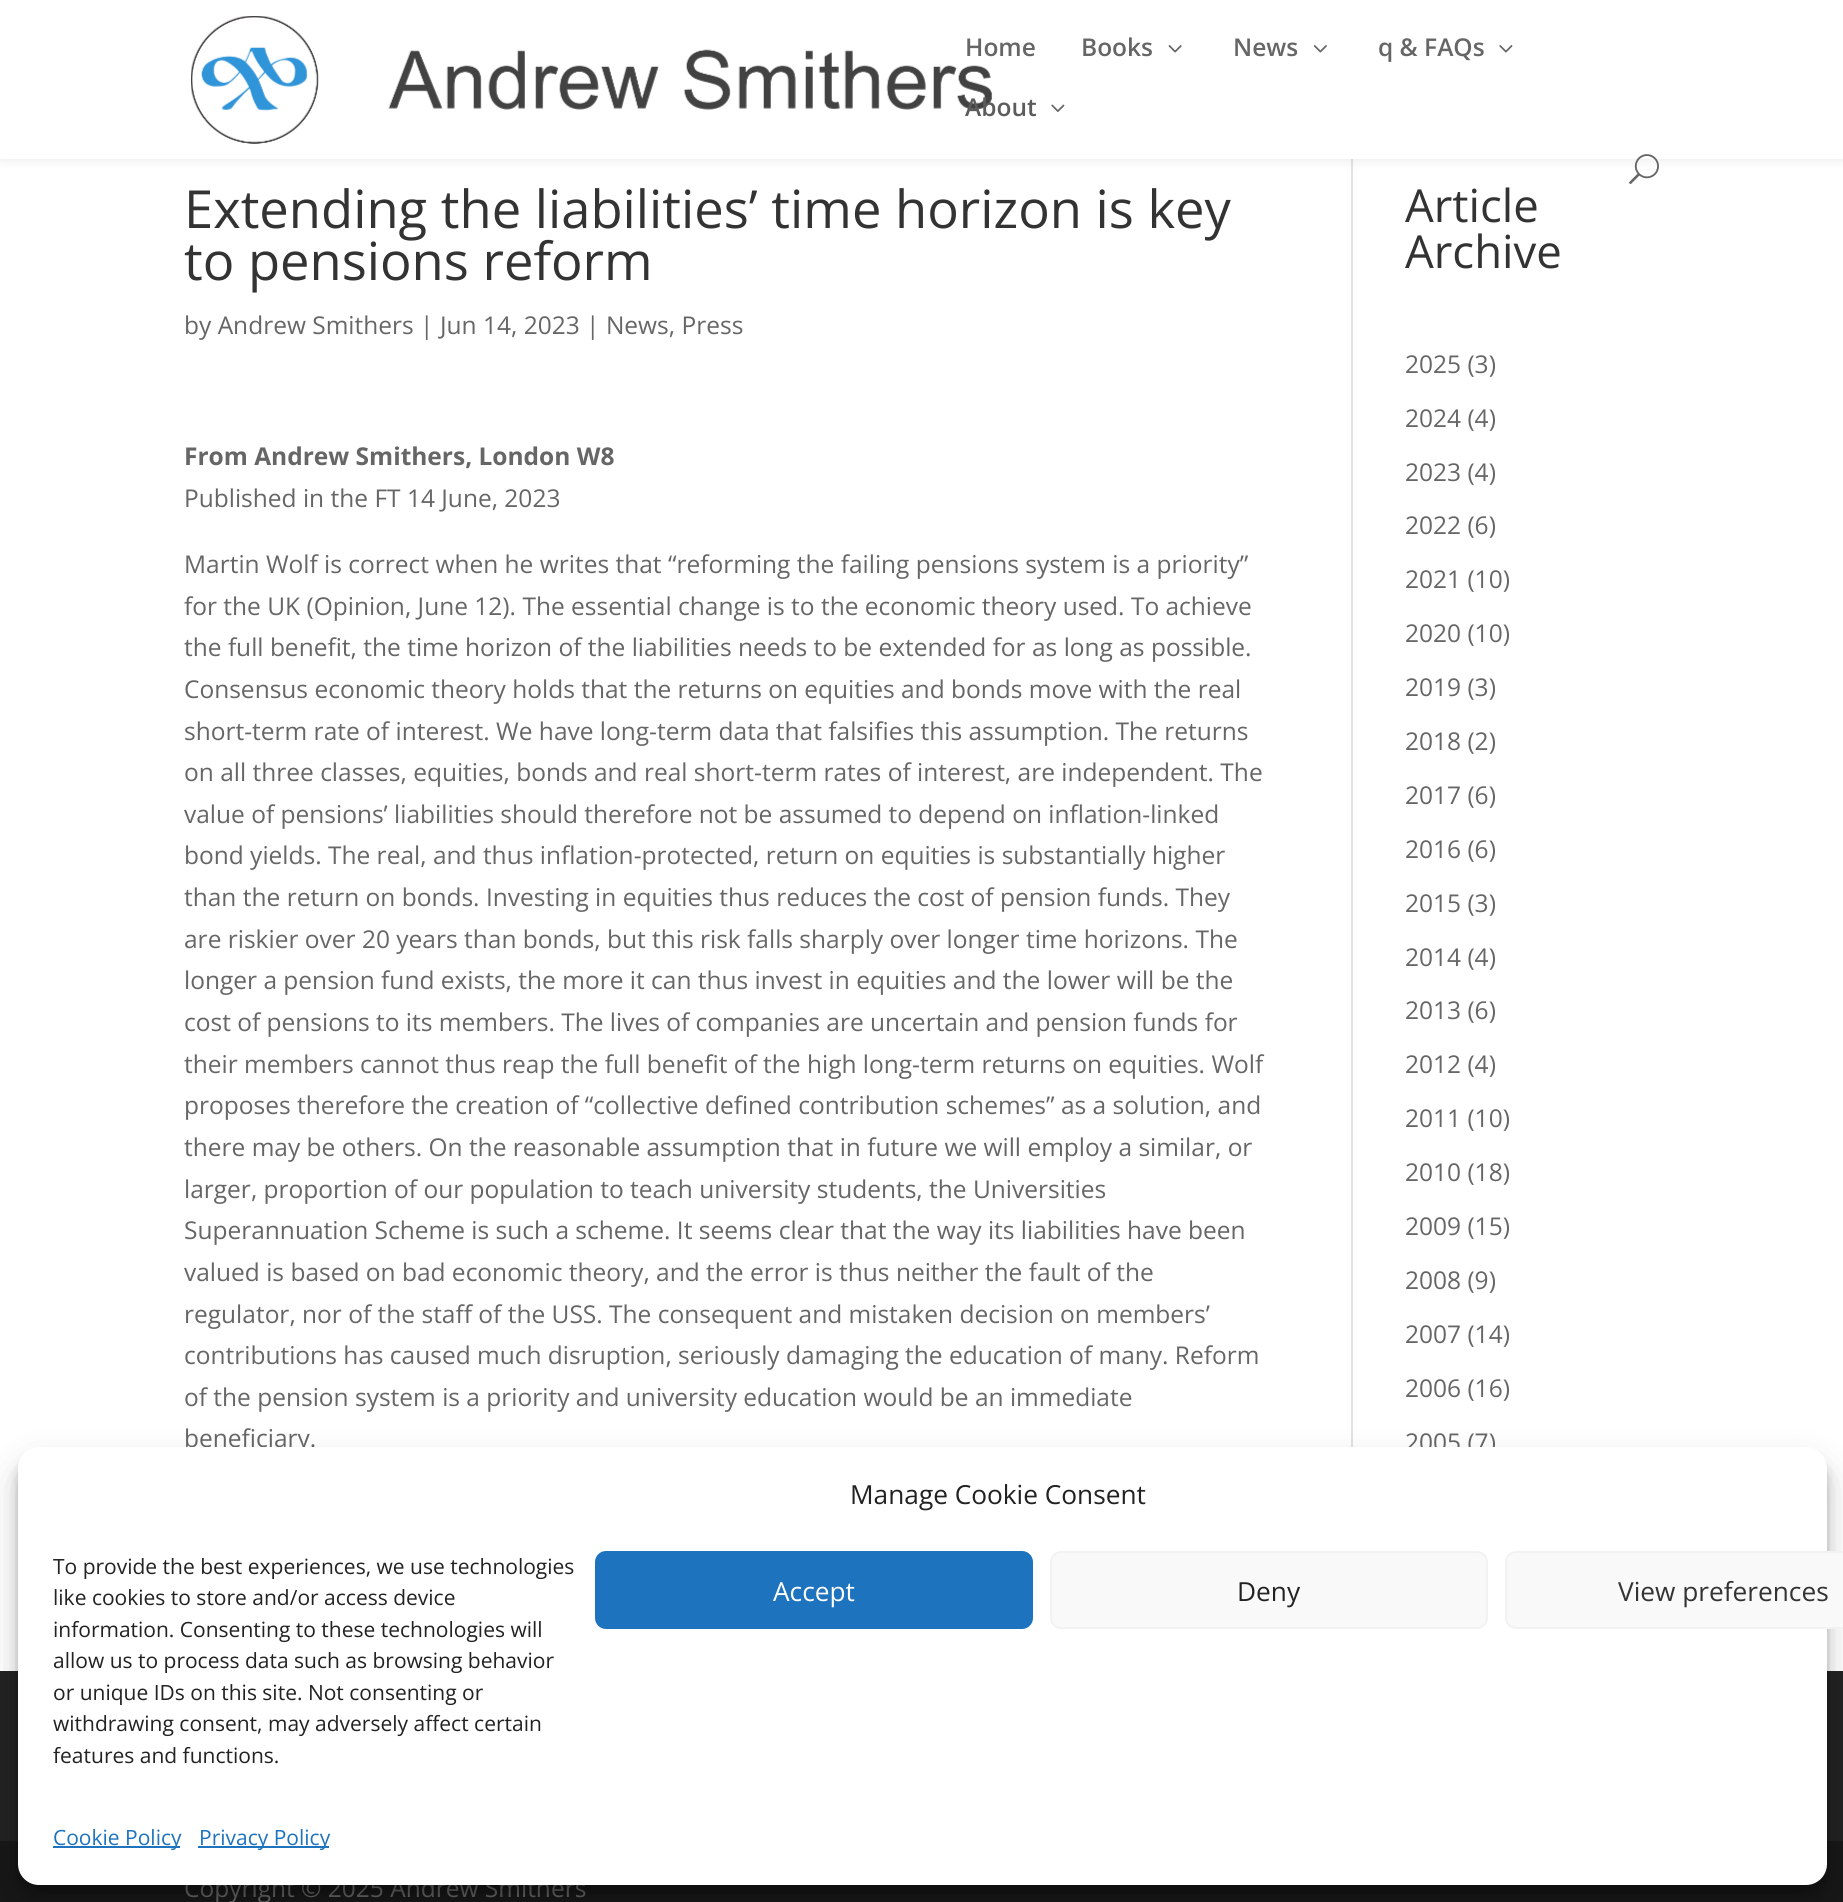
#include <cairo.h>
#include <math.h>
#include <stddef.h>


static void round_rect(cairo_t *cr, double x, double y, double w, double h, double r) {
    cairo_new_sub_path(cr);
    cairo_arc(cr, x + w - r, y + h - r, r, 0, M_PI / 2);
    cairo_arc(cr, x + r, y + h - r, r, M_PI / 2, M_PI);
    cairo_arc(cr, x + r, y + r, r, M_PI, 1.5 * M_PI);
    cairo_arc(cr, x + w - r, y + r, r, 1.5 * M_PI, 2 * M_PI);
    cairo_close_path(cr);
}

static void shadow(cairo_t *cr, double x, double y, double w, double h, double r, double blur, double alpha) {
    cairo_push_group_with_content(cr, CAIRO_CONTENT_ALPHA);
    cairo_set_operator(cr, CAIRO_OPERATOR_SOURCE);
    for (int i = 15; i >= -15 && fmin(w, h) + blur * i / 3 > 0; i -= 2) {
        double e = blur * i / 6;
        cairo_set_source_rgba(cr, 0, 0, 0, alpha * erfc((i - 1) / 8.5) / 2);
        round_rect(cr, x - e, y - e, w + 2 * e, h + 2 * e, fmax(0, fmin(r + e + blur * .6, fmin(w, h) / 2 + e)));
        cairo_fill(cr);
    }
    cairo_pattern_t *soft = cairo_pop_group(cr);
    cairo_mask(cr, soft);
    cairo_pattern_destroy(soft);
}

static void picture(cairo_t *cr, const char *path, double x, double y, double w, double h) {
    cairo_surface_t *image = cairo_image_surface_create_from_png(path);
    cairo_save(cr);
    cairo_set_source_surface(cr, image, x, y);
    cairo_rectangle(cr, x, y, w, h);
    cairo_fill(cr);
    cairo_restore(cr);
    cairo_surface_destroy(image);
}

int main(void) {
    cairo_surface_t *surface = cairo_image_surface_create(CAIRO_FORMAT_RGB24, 1843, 1902);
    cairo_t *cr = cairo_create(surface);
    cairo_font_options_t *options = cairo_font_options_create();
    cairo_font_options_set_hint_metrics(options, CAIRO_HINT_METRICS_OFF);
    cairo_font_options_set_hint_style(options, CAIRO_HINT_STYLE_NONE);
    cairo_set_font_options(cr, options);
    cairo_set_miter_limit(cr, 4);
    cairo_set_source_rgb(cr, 1, 1, 1);
    cairo_paint(cr);
    cairo_set_source_rgb(cr, 0.886, 0.886, 0.886);
    cairo_rectangle(cr, 1351, 159, 2, 1288);
    cairo_fill(cr);
    cairo_set_source_rgb(cr, 0, 0, 0);
    shadow(cr, 0, 0, 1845, 159, 0, 6, 0.1);
    cairo_set_source_rgb(cr, 1, 1, 1);
    cairo_rectangle(cr, 0, 0, 1843, 159);
    cairo_fill(cr);
    picture(cr, "img1.png", 191, 16, 802, 128);
    cairo_select_font_face(cr, "Open Sans SemiBold", CAIRO_FONT_SLANT_NORMAL, CAIRO_FONT_WEIGHT_NORMAL);
    cairo_set_font_size(cr, 24.5);
    cairo_set_source_rgb(cr, 0.4, 0.4, 0.4);
    cairo_move_to(cr, 965, 56);
    cairo_show_text(cr, "Home");
    cairo_move_to(cr, 1081, 56);
    cairo_show_text(cr, "Books");
    picture(cr, "img2.png", 1168, 45, 14, 8);
    cairo_move_to(cr, 1233, 56);
    cairo_show_text(cr, "News");
    picture(cr, "img3.png", 1313, 45, 14, 8);
    cairo_move_to(cr, 1378, 56);
    cairo_show_text(cr, "q & FAQs");
    picture(cr, "img4.png", 1499, 45, 14, 8);
    cairo_set_source_rgb(cr, 0.361, 0.361, 0.361);
    cairo_move_to(cr, 965, 116);
    cairo_show_text(cr, "About");
    picture(cr, "img5.png", 1051, 104, 14, 8);
    picture(cr, "img6.png", 1629, 154, 30, 30);
    cairo_select_font_face(cr, "Open Sans", CAIRO_FONT_SLANT_NORMAL, CAIRO_FONT_WEIGHT_NORMAL);
    cairo_set_font_size(cr, 52.5);
    cairo_set_source_rgb(cr, 0.2, 0.2, 0.2);
    cairo_move_to(cr, 184, 228);
    cairo_show_text(cr, "Extending the liabilities’ time horizon is key");
    cairo_move_to(cr, 184, 280);
    cairo_show_text(cr, "to pensions reform");
    cairo_set_font_size(cr, 24.5);
    cairo_set_source_rgb(cr, 0.4, 0.4, 0.4);
    cairo_move_to(cr, 184, 334);
    cairo_show_text(cr, "by Andrew Smithers | Jun 14, 2023 | News, Press");
    cairo_select_font_face(cr, "Open Sans", CAIRO_FONT_SLANT_NORMAL, CAIRO_FONT_WEIGHT_BOLD);
    cairo_move_to(cr, 184, 465);
    cairo_show_text(cr, "From Andrew Smithers, London W8");
    cairo_select_font_face(cr, "Open Sans", CAIRO_FONT_SLANT_NORMAL, CAIRO_FONT_WEIGHT_NORMAL);
    cairo_move_to(cr, 184, 507);
    cairo_show_text(cr, "Published in the FT 14 June, 2023");
    cairo_move_to(cr, 184, 573);
    cairo_show_text(cr, "Martin Wolf is correct when he writes that “reforming the failing pensions system is a priority”");
    cairo_move_to(cr, 184, 615);
    cairo_show_text(cr, "for the UK (Opinion, June 12). The essential change is to the economic theory used. To achieve");
    cairo_move_to(cr, 184, 656);
    cairo_show_text(cr, "the full benefit, the time horizon of the liabilities needs to be extended for as long as possible.");
    cairo_move_to(cr, 184, 698);
    cairo_show_text(cr, "Consensus economic theory holds that the returns on equities and bonds move with the real");
    cairo_move_to(cr, 184, 740);
    cairo_show_text(cr, "short-term rate of interest. We have long-term data that falsifies this assumption. The returns");
    cairo_move_to(cr, 184, 781);
    cairo_show_text(cr, "on all three classes, equities, bonds and real short-term rates of interest, are independent. The");
    cairo_move_to(cr, 184, 823);
    cairo_show_text(cr, "value of pensions’ liabilities should therefore not be assumed to depend on inflation-linked");
    cairo_move_to(cr, 184, 864);
    cairo_show_text(cr, "bond yields. The real, and thus inflation-protected, return on equities is substantially higher");
    cairo_move_to(cr, 184, 906);
    cairo_show_text(cr, "than the return on bonds. Investing in equities thus reduces the cost of pension funds. They");
    cairo_move_to(cr, 184, 948);
    cairo_show_text(cr, "are riskier over 20 years than bonds, but this risk falls sharply over longer time horizons. The");
    cairo_move_to(cr, 184, 989);
    cairo_show_text(cr, "longer a pension fund exists, the more it can thus invest in equities and the lower will be the");
    cairo_move_to(cr, 184, 1031);
    cairo_show_text(cr, "cost of pensions to its members. The lives of companies are uncertain and pension funds for");
    cairo_move_to(cr, 184, 1073);
    cairo_show_text(cr, "their members cannot thus reap the full benefit of the high long-term returns on equities. Wolf");
    cairo_move_to(cr, 184, 1114);
    cairo_show_text(cr, "proposes therefore the creation of “collective defined contribution schemes” as a solution, and");
    cairo_move_to(cr, 184, 1156);
    cairo_show_text(cr, "there may be others. On the reasonable assumption that in future we will employ a similar, or");
    cairo_move_to(cr, 184, 1198);
    cairo_show_text(cr, "larger, proportion of our population to teach university students, the Universities");
    cairo_move_to(cr, 184, 1239);
    cairo_show_text(cr, "Superannuation Scheme is such a scheme. It seems clear that the way its liabilities have been");
    cairo_move_to(cr, 184, 1281);
    cairo_show_text(cr, "valued is based on bad economic theory, and the error is thus neither the fault of the");
    cairo_move_to(cr, 184, 1323);
    cairo_show_text(cr, "regulator, nor of the staff of the USS. The consequent and mistaken decision on members’");
    cairo_move_to(cr, 184, 1364);
    cairo_show_text(cr, "contributions has caused much disruption, seriously damaging the education of many. Reform");
    cairo_move_to(cr, 184, 1406);
    cairo_show_text(cr, "of the pension system is a priority and university education would be an immediate");
    cairo_move_to(cr, 184, 1447);
    cairo_show_text(cr, "beneficiary.");
    cairo_set_font_size(cr, 45.5);
    cairo_set_source_rgb(cr, 0.2, 0.2, 0.2);
    cairo_move_to(cr, 1405, 222);
    cairo_show_text(cr, "Article");
    cairo_move_to(cr, 1405, 268);
    cairo_show_text(cr, "Archive");
    cairo_set_font_size(cr, 24.5);
    cairo_set_source_rgb(cr, 0.4, 0.4, 0.4);
    cairo_move_to(cr, 1405, 373);
    cairo_show_text(cr, "2025 (3)");
    cairo_move_to(cr, 1405, 427);
    cairo_show_text(cr, "2024 (4)");
    cairo_move_to(cr, 1405, 481);
    cairo_show_text(cr, "2023 (4)");
    cairo_move_to(cr, 1405, 534);
    cairo_show_text(cr, "2022 (6)");
    cairo_move_to(cr, 1405, 588);
    cairo_show_text(cr, "2021 (10)");
    cairo_move_to(cr, 1405, 642);
    cairo_show_text(cr, "2020 (10)");
    cairo_move_to(cr, 1405, 696);
    cairo_show_text(cr, "2019 (3)");
    cairo_move_to(cr, 1405, 750);
    cairo_show_text(cr, "2018 (2)");
    cairo_move_to(cr, 1405, 804);
    cairo_show_text(cr, "2017 (6)");
    cairo_move_to(cr, 1405, 858);
    cairo_show_text(cr, "2016 (6)");
    cairo_move_to(cr, 1405, 912);
    cairo_show_text(cr, "2015 (3)");
    cairo_move_to(cr, 1405, 966);
    cairo_show_text(cr, "2014 (4)");
    cairo_move_to(cr, 1405, 1019);
    cairo_show_text(cr, "2013 (6)");
    cairo_move_to(cr, 1405, 1073);
    cairo_show_text(cr, "2012 (4)");
    cairo_move_to(cr, 1405, 1127);
    cairo_show_text(cr, "2011 (10)");
    cairo_move_to(cr, 1405, 1181);
    cairo_show_text(cr, "2010 (18)");
    cairo_move_to(cr, 1405, 1235);
    cairo_show_text(cr, "2009 (15)");
    cairo_move_to(cr, 1405, 1289);
    cairo_show_text(cr, "2008 (9)");
    cairo_move_to(cr, 1405, 1343);
    cairo_show_text(cr, "2007 (14)");
    cairo_move_to(cr, 1405, 1397);
    cairo_show_text(cr, "2006 (16)");
    cairo_move_to(cr, 1405, 1451);
    cairo_show_text(cr, "2005 (7)");
    cairo_set_source_rgb(cr, 0.133, 0.133, 0.133);
    cairo_rectangle(cr, 0, 1671, 1843, 170);
    cairo_fill(cr);
    cairo_set_source_rgb(cr, 0.09, 0.09, 0.09);
    cairo_rectangle(cr, 0, 1841, 1843, 61);
    cairo_fill(cr);
    cairo_set_source_rgb(cr, 0.4, 0.4, 0.4);
    cairo_move_to(cr, 184, 1897);
    cairo_show_text(cr, "Copyright © 2025 Andrew Smithers");
    cairo_set_source_rgb(cr, 0, 0, 0);
    shadow(cr, 18, 1458, 1809, 437, 21, 5, 0.23);
    shadow(cr, 18, 1465, 1809, 437, 21, 17.5, 0.19);
    cairo_set_source_rgb(cr, 1, 1, 1);
    round_rect(cr, 18, 1447, 1809, 438, 21);
    cairo_fill(cr);
    cairo_set_font_size(cr, 26.25);
    cairo_set_source_rgb(cr, 0.133, 0.133, 0.133);
    cairo_move_to(cr, 850, 1504);
    cairo_show_text(cr, "Manage Cookie Consent");
    cairo_set_font_size(cr, 21);
    cairo_move_to(cr, 53, 1574);
    cairo_show_text(cr, "To provide the best experiences, we use technologies");
    cairo_move_to(cr, 53, 1605);
    cairo_show_text(cr, "like cookies to store and/or access device");
    cairo_move_to(cr, 53, 1637);
    cairo_show_text(cr, "information. Consenting to these technologies will");
    cairo_move_to(cr, 53, 1668);
    cairo_show_text(cr, "allow us to process data such as browsing behavior");
    cairo_move_to(cr, 53, 1700);
    cairo_show_text(cr, "or unique IDs on this site. Not consenting or");
    cairo_move_to(cr, 53, 1731);
    cairo_show_text(cr, "withdrawing consent, may adversely affect certain");
    cairo_move_to(cr, 53, 1763);
    cairo_show_text(cr, "features and functions.");
    cairo_set_source_rgb(cr, 0.118, 0.451, 0.745);
    round_rect(cr, 596, 1552, 436, 76, 10);
    cairo_fill_preserve(cr);
    cairo_stroke(cr);
    cairo_set_font_size(cr, 26.25);
    cairo_set_source_rgb(cr, 1, 1, 1);
    cairo_move_to(cr, 773, 1601);
    cairo_show_text(cr, "Accept");
    cairo_set_source_rgb(cr, 0.976, 0.976, 0.976);
    round_rect(cr, 1051, 1552, 436, 76, 10);
    cairo_fill_preserve(cr);
    cairo_set_source_rgb(cr, 0.949, 0.949, 0.949);
    cairo_stroke(cr);
    cairo_set_source_rgb(cr, 0.133, 0.133, 0.133);
    cairo_move_to(cr, 1237, 1601);
    cairo_show_text(cr, "Deny");
    cairo_set_source_rgb(cr, 0.976, 0.976, 0.976);
    round_rect(cr, 1506, 1552, 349, 76, 10);
    cairo_fill_preserve(cr);
    cairo_set_source_rgb(cr, 0.949, 0.949, 0.949);
    cairo_stroke(cr);
    cairo_set_source_rgb(cr, 0.2, 0.2, 0.2);
    cairo_move_to(cr, 1618, 1601);
    cairo_show_text(cr, "View preferences");
    cairo_set_source_rgb(cr, 0.118, 0.451, 0.745);
    cairo_rectangle(cr, 53, 1846, 127, 2);
    cairo_fill(cr);
    cairo_set_font_size(cr, 21);
    cairo_move_to(cr, 53, 1845);
    cairo_show_text(cr, "Cookie Policy");
    cairo_rectangle(cr, 198, 1846, 131, 2);
    cairo_fill(cr);
    cairo_move_to(cr, 199, 1845);
    cairo_show_text(cr, "Privacy Policy");
    cairo_surface_write_to_png(surface, "page.png");
    cairo_font_options_destroy(options);
    cairo_destroy(cr);
    cairo_surface_destroy(surface);
    return 0;
}
